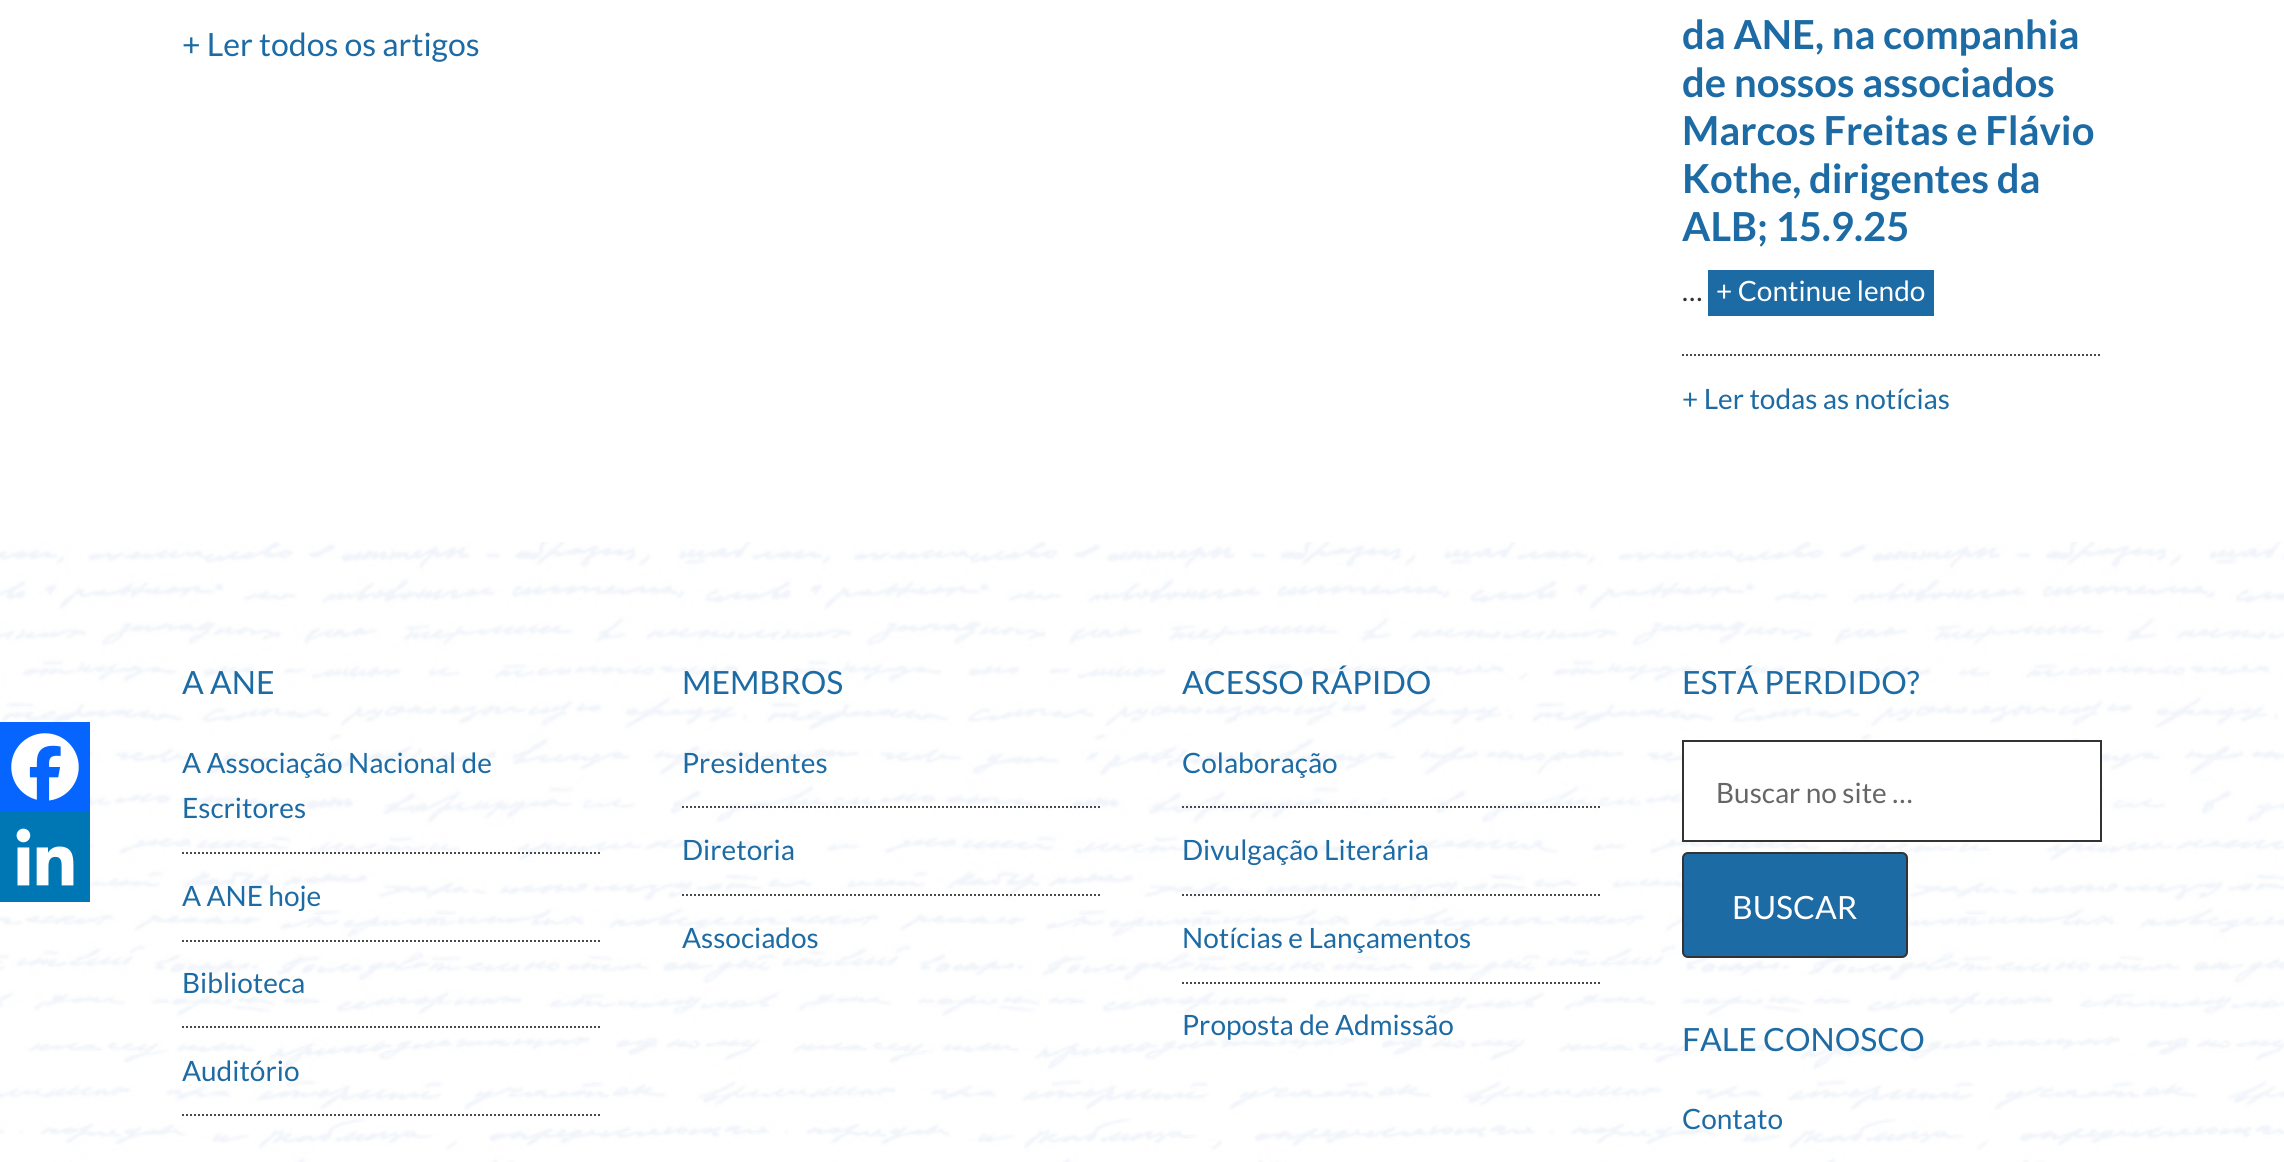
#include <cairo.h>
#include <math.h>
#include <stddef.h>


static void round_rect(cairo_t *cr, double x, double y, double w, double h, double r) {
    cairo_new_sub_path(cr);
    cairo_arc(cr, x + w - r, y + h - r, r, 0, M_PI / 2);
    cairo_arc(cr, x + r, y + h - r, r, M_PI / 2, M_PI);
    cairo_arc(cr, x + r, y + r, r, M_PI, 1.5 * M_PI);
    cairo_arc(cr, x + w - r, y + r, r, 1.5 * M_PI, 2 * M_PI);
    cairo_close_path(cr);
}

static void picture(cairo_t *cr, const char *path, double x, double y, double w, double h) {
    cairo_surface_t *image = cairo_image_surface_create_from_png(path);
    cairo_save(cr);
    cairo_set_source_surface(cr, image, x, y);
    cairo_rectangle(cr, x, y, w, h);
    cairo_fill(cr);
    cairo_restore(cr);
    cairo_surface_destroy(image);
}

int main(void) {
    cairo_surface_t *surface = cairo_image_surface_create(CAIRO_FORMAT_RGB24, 2284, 1162);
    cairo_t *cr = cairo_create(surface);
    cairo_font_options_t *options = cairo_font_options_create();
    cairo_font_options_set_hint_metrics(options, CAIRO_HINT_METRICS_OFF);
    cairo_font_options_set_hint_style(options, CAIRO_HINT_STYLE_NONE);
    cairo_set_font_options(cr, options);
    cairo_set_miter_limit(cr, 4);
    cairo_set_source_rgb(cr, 1, 1, 1);
    cairo_paint(cr);
    cairo_select_font_face(cr, "Lato", CAIRO_FONT_SLANT_NORMAL, CAIRO_FONT_WEIGHT_NORMAL);
    cairo_set_font_size(cr, 32);
    cairo_set_source_rgb(cr, 0.114, 0.42, 0.643);
    cairo_move_to(cr, 182, 56);
    cairo_show_text(cr, "+ Ler todos os artigos");
    picture(cr, "img3.png", 0, 542, 2284, 620);
    cairo_set_source_rgb(cr, 0.027, 0.396, 0.996);
    cairo_rectangle(cr, 0, 722, 90, 90);
    cairo_fill(cr);
    picture(cr, "img1.png", 11, 733, 68, 68);
    cairo_set_source_rgb(cr, 0, 0.467, 0.71);
    cairo_rectangle(cr, 0, 812, 90, 90);
    cairo_fill(cr);
    picture(cr, "img2.png", 16, 828, 58, 58);
    cairo_select_font_face(cr, "Lato", CAIRO_FONT_SLANT_NORMAL, CAIRO_FONT_WEIGHT_BOLD);
    cairo_set_font_size(cr, 40);
    cairo_set_source_rgb(cr, 0.114, 0.42, 0.643);
    cairo_move_to(cr, 1682, 49);
    cairo_show_text(cr, "da ANE, na companhia");
    cairo_move_to(cr, 1682, 97);
    cairo_show_text(cr, "de nossos associados");
    cairo_move_to(cr, 1682, 145);
    cairo_show_text(cr, "Marcos Freitas e Flávio");
    cairo_move_to(cr, 1682, 193);
    cairo_show_text(cr, "Kothe, dirigentes da");
    cairo_move_to(cr, 1682, 241);
    cairo_show_text(cr, "ALB; 15.9.25");
    cairo_select_font_face(cr, "Lato", CAIRO_FONT_SLANT_NORMAL, CAIRO_FONT_WEIGHT_NORMAL);
    cairo_set_font_size(cr, 28);
    cairo_set_source_rgb(cr, 0.2, 0.2, 0.2);
    cairo_move_to(cr, 1682, 301);
    cairo_show_text(cr, "…");
    cairo_set_source_rgb(cr, 0.114, 0.42, 0.643);
    cairo_rectangle(cr, 1708, 270, 226, 46);
    cairo_fill(cr);
    cairo_set_source_rgb(cr, 1, 1, 1);
    cairo_move_to(cr, 1716, 301);
    cairo_show_text(cr, "+ Continue lendo");
    cairo_new_path(cr);
    cairo_move_to(cr, 1682, 355);
    cairo_line_to(cr, 2102, 355);
    cairo_set_source_rgb(cr, 0.286, 0.286, 0.286);
    cairo_set_dash(cr, (double[]){2, 2}, 2, 0);
    cairo_stroke(cr);
    cairo_set_source_rgb(cr, 0.114, 0.42, 0.643);
    cairo_move_to(cr, 1682, 409);
    cairo_show_text(cr, "+ Ler todas as notícias");
    cairo_set_font_size(cr, 32);
    cairo_move_to(cr, 182, 694);
    cairo_show_text(cr, "A ANE");
    cairo_new_path(cr);
    cairo_move_to(cr, 182, 853);
    cairo_line_to(cr, 602, 853);
    cairo_set_source_rgb(cr, 0.286, 0.286, 0.286);
    cairo_stroke(cr);
    cairo_set_font_size(cr, 28);
    cairo_set_source_rgb(cr, 0.114, 0.42, 0.643);
    cairo_move_to(cr, 182, 773);
    cairo_show_text(cr, "A Associação Nacional de");
    cairo_move_to(cr, 182, 818);
    cairo_show_text(cr, "Escritores");
    cairo_new_path(cr);
    cairo_move_to(cr, 182, 941);
    cairo_line_to(cr, 602, 941);
    cairo_set_source_rgb(cr, 0.286, 0.286, 0.286);
    cairo_stroke(cr);
    cairo_set_source_rgb(cr, 0.114, 0.42, 0.643);
    cairo_move_to(cr, 182, 906);
    cairo_show_text(cr, "A ANE hoje");
    cairo_new_path(cr);
    cairo_move_to(cr, 182, 1027);
    cairo_line_to(cr, 602, 1027);
    cairo_set_source_rgb(cr, 0.286, 0.286, 0.286);
    cairo_stroke(cr);
    cairo_set_source_rgb(cr, 0.114, 0.42, 0.643);
    cairo_move_to(cr, 182, 993);
    cairo_show_text(cr, "Biblioteca");
    cairo_new_path(cr);
    cairo_move_to(cr, 182, 1115);
    cairo_line_to(cr, 602, 1115);
    cairo_set_source_rgb(cr, 0.286, 0.286, 0.286);
    cairo_stroke(cr);
    cairo_set_source_rgb(cr, 0.114, 0.42, 0.643);
    cairo_move_to(cr, 182, 1081);
    cairo_show_text(cr, "Auditório");
    cairo_set_font_size(cr, 32);
    cairo_move_to(cr, 682, 694);
    cairo_show_text(cr, "MEMBROS");
    cairo_new_path(cr);
    cairo_move_to(cr, 682, 807);
    cairo_line_to(cr, 1102, 807);
    cairo_set_source_rgb(cr, 0.286, 0.286, 0.286);
    cairo_stroke(cr);
    cairo_set_font_size(cr, 28);
    cairo_set_source_rgb(cr, 0.114, 0.42, 0.643);
    cairo_move_to(cr, 682, 773);
    cairo_show_text(cr, "Presidentes");
    cairo_new_path(cr);
    cairo_move_to(cr, 682, 895);
    cairo_line_to(cr, 1102, 895);
    cairo_set_source_rgb(cr, 0.286, 0.286, 0.286);
    cairo_stroke(cr);
    cairo_set_source_rgb(cr, 0.114, 0.42, 0.643);
    cairo_move_to(cr, 682, 860);
    cairo_show_text(cr, "Diretoria");
    cairo_move_to(cr, 682, 948);
    cairo_show_text(cr, "Associados");
    cairo_set_font_size(cr, 32);
    cairo_move_to(cr, 1182, 694);
    cairo_show_text(cr, "ACESSO RÁPIDO");
    cairo_new_path(cr);
    cairo_move_to(cr, 1182, 807);
    cairo_line_to(cr, 1602, 807);
    cairo_set_source_rgb(cr, 0.286, 0.286, 0.286);
    cairo_stroke(cr);
    cairo_set_font_size(cr, 28);
    cairo_set_source_rgb(cr, 0.114, 0.42, 0.643);
    cairo_move_to(cr, 1182, 773);
    cairo_show_text(cr, "Colaboração");
    cairo_new_path(cr);
    cairo_move_to(cr, 1182, 895);
    cairo_line_to(cr, 1602, 895);
    cairo_set_source_rgb(cr, 0.286, 0.286, 0.286);
    cairo_stroke(cr);
    cairo_set_source_rgb(cr, 0.114, 0.42, 0.643);
    cairo_move_to(cr, 1182, 860);
    cairo_show_text(cr, "Divulgação Literária");
    cairo_new_path(cr);
    cairo_move_to(cr, 1182, 983);
    cairo_line_to(cr, 1602, 983);
    cairo_set_source_rgb(cr, 0.286, 0.286, 0.286);
    cairo_stroke(cr);
    cairo_set_source_rgb(cr, 0.114, 0.42, 0.643);
    cairo_move_to(cr, 1182, 948);
    cairo_show_text(cr, "Notícias e Lançamentos");
    cairo_move_to(cr, 1182, 1035);
    cairo_show_text(cr, "Proposta de Admissão");
    cairo_set_font_size(cr, 32);
    cairo_move_to(cr, 1682, 694);
    cairo_show_text(cr, "ESTÁ PERDIDO?");
    cairo_set_source_rgb(cr, 1, 1, 1);
    cairo_rectangle(cr, 1683, 741, 418, 100);
    cairo_fill_preserve(cr);
    cairo_set_source_rgb(cr, 0.2, 0.2, 0.2);
    cairo_set_dash(cr, NULL, 0, 0);
    cairo_stroke(cr);
    cairo_set_font_size(cr, 28);
    cairo_set_source_rgb(cr, 0.4, 0.4, 0.4);
    cairo_move_to(cr, 1716, 803);
    cairo_show_text(cr, "Buscar no site …");
    cairo_set_source_rgb(cr, 0.114, 0.42, 0.643);
    round_rect(cr, 1683, 853, 224, 104, 5);
    cairo_fill_preserve(cr);
    cairo_set_source_rgb(cr, 0.2, 0.2, 0.2);
    cairo_stroke(cr);
    cairo_set_font_size(cr, 32);
    cairo_set_source_rgb(cr, 1, 1, 1);
    cairo_move_to(cr, 1732, 919);
    cairo_show_text(cr, "BUSCAR");
    cairo_set_source_rgb(cr, 0.114, 0.42, 0.643);
    cairo_move_to(cr, 1682, 1051);
    cairo_show_text(cr, "FALE CONOSCO");
    cairo_set_font_size(cr, 28);
    cairo_move_to(cr, 1682, 1129);
    cairo_show_text(cr, "Contato");
    cairo_surface_write_to_png(surface, "page.png");
    cairo_font_options_destroy(options);
    cairo_destroy(cr);
    cairo_surface_destroy(surface);
    return 0;
}
